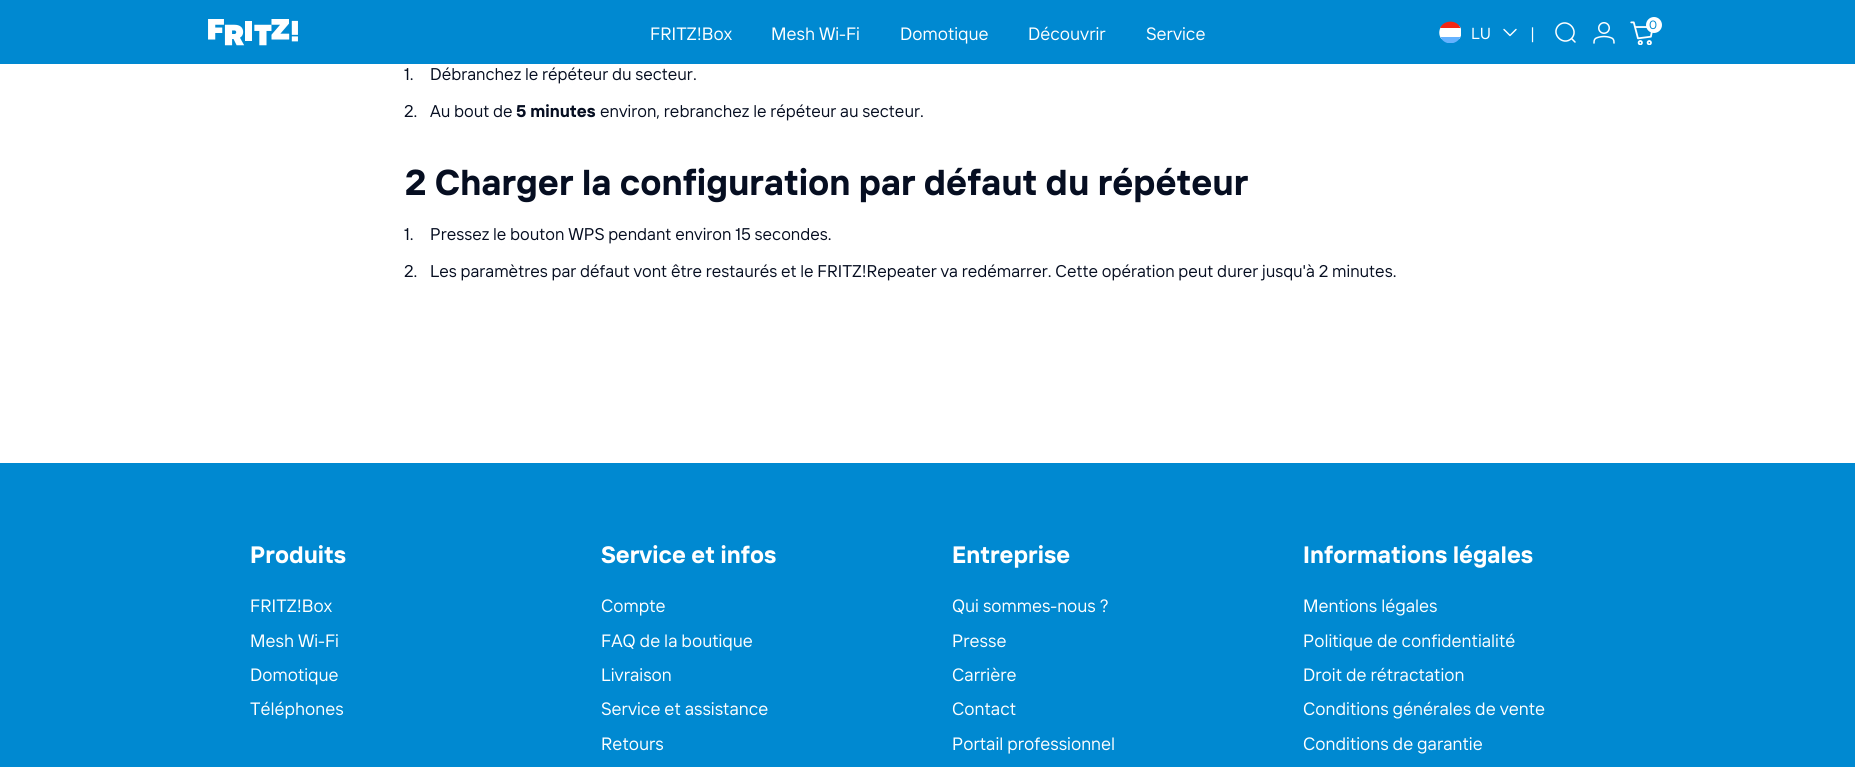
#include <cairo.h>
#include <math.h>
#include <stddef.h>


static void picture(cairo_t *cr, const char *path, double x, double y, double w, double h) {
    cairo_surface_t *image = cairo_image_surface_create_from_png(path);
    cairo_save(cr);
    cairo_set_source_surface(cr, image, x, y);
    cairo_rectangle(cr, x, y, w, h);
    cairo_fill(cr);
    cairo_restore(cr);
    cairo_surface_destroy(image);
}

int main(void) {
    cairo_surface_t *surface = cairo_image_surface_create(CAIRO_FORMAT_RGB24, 1855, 767);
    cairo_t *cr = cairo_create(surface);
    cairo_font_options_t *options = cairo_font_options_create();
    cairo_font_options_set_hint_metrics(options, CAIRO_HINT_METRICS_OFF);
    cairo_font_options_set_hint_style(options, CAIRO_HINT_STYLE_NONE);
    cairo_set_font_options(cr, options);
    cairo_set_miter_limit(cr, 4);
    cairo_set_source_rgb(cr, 1, 1, 1);
    cairo_paint(cr);
    cairo_set_source_rgb(cr, 0, 0.537, 0.82);
    cairo_rectangle(cr, 0, 0, 1855, 64);
    cairo_fill(cr);
    picture(cr, "img1.png", 208, 19, 90, 27);
    cairo_select_font_face(cr, "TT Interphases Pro", CAIRO_FONT_SLANT_NORMAL, CAIRO_FONT_WEIGHT_NORMAL);
    cairo_set_font_size(cr, 17.9);
    cairo_set_source_rgb(cr, 1, 1, 1);
    cairo_move_to(cr, 650, 40);
    cairo_show_text(cr, "FRITZ!Box");
    cairo_move_to(cr, 771, 40);
    cairo_show_text(cr, "Mesh Wi-Fi");
    cairo_move_to(cr, 900, 40);
    cairo_show_text(cr, "Domotique");
    cairo_move_to(cr, 1028, 40);
    cairo_show_text(cr, "Découvrir");
    cairo_move_to(cr, 1146, 40);
    cairo_show_text(cr, "Service");
    cairo_new_path(cr);
    cairo_move_to(cr, 1575, 42);
    cairo_line_to(cr, 1571.5, 38.5);
    cairo_move_to(cr, 1571.5, 38.5);
    cairo_curve_to(cr, 1579.5, 30, 1567, 17.5, 1558.5, 25.5);
    cairo_curve_to(cr, 1550.5, 34, 1563, 46.5, 1571.5, 38.5);
    cairo_close_path(cr);
    cairo_set_line_width(cr, 1.5);
    cairo_set_line_cap(cr, CAIRO_LINE_CAP_ROUND);
    cairo_stroke(cr);
    picture(cr, "img2.png", 1593, 22, 22, 22);
    picture(cr, "img3.png", 1630, 21, 23, 24);
    cairo_arc(cr, 1654, 25, 8, 0, 2 * M_PI);
    cairo_fill(cr);
    cairo_set_font_size(cr, 12);
    cairo_set_source_rgb(cr, 0, 0.537, 0.82);
    cairo_move_to(cr, 1649, 29);
    cairo_show_text(cr, "0");
    cairo_save(cr);
    cairo_rectangle(cr, 1439, 21, 22, 22);
    cairo_clip(cr);
    cairo_set_source_rgb(cr, 1, 1, 1);
    cairo_new_path(cr);
    cairo_move_to(cr, 1461.5, 32.5);
    cairo_curve_to(cr, 1461.5, 35, 1460.5, 37, 1459.5, 39);
    cairo_line_to(cr, 1441.5, 39);
    cairo_curve_to(cr, 1438.5, 35.5, 1438.5, 30, 1441.5, 26);
    cairo_line_to(cr, 1459.5, 26);
    cairo_curve_to(cr, 1461, 28, 1461.5, 30, 1461.5, 32.5);
    cairo_close_path(cr);
    cairo_fill(cr);
    cairo_set_source_rgb(cr, 0.396, 0.698, 1);
    cairo_new_path(cr);
    cairo_move_to(cr, 1460.5, 37);
    cairo_line_to(cr, 1440.5, 37);
    cairo_curve_to(cr, 1444, 45.5, 1456.5, 45.5, 1460.5, 37);
    cairo_close_path(cr);
    cairo_fill(cr);
    cairo_restore(cr);
    cairo_set_source_rgb(cr, 0.953, 0.149, 0.078);
    cairo_new_path(cr);
    cairo_move_to(cr, 1460.5, 28);
    cairo_line_to(cr, 1440, 28);
    cairo_curve_to(cr, 1444, 19.5, 1457, 19.5, 1460.5, 28);
    cairo_close_path(cr);
    cairo_fill(cr);
    cairo_set_font_size(cr, 16);
    cairo_set_source_rgb(cr, 1, 1, 1);
    cairo_move_to(cr, 1471, 39);
    cairo_show_text(cr, "LU");
    cairo_new_path(cr);
    cairo_move_to(cr, 1504, 29.5);
    cairo_line_to(cr, 1510, 35.5);
    cairo_line_to(cr, 1516, 29.5);
    cairo_set_line_width(cr, 1.4);
    cairo_set_line_join(cr, CAIRO_LINE_JOIN_ROUND);
    cairo_stroke(cr);
    cairo_move_to(cr, 1530, 39);
    cairo_show_text(cr, "|");
    cairo_set_font_size(cr, 17);
    cairo_set_source_rgb(cr, 0.027, 0.055, 0.129);
    cairo_move_to(cr, 404, 80);
    cairo_show_text(cr, "1.");
    cairo_move_to(cr, 430, 80);
    cairo_show_text(cr, "Débranchez le répéteur du secteur.");
    cairo_move_to(cr, 404, 117);
    cairo_show_text(cr, "2.");
    cairo_move_to(cr, 430, 117);
    cairo_show_text(cr, "Au bout de");
    cairo_select_font_face(cr, "TT Interphases Pro", CAIRO_FONT_SLANT_NORMAL, CAIRO_FONT_WEIGHT_BOLD);
    cairo_move_to(cr, 516, 117);
    cairo_show_text(cr, "5 minutes");
    cairo_select_font_face(cr, "TT Interphases Pro", CAIRO_FONT_SLANT_NORMAL, CAIRO_FONT_WEIGHT_NORMAL);
    cairo_move_to(cr, 600, 117);
    cairo_show_text(cr, "environ, rebranchez le répéteur au secteur.");
    cairo_select_font_face(cr, "TT Interphases Pro", CAIRO_FONT_SLANT_NORMAL, CAIRO_FONT_WEIGHT_BOLD);
    cairo_set_font_size(cr, 36);
    cairo_move_to(cr, 405, 195);
    cairo_show_text(cr, "2 Charger la configuration par défaut du répéteur");
    cairo_select_font_face(cr, "TT Interphases Pro", CAIRO_FONT_SLANT_NORMAL, CAIRO_FONT_WEIGHT_NORMAL);
    cairo_set_font_size(cr, 17);
    cairo_move_to(cr, 404, 240);
    cairo_show_text(cr, "1.");
    cairo_move_to(cr, 430, 240);
    cairo_show_text(cr, "Pressez le bouton WPS pendant environ 15 secondes.");
    cairo_move_to(cr, 404, 277);
    cairo_show_text(cr, "2.");
    cairo_move_to(cr, 430, 277);
    cairo_show_text(cr, "Les paramètres par défaut vont être restaurés et le FRITZ!Repeater va redémarrer. Cette opération peut durer jusqu'à 2 minutes.");
    cairo_set_source_rgb(cr, 0, 0.537, 0.82);
    cairo_rectangle(cr, 0, 463, 1855, 304);
    cairo_fill(cr);
    cairo_select_font_face(cr, "TT Interphases Pro", CAIRO_FONT_SLANT_NORMAL, CAIRO_FONT_WEIGHT_BOLD);
    cairo_set_font_size(cr, 23.75);
    cairo_set_source_rgb(cr, 1, 1, 1);
    cairo_move_to(cr, 250, 563);
    cairo_show_text(cr, "Produits");
    cairo_select_font_face(cr, "TT Interphases Pro", CAIRO_FONT_SLANT_NORMAL, CAIRO_FONT_WEIGHT_NORMAL);
    cairo_set_font_size(cr, 17.9);
    cairo_move_to(cr, 250, 612);
    cairo_show_text(cr, "FRITZ!Box");
    cairo_move_to(cr, 250, 647);
    cairo_show_text(cr, "Mesh Wi-Fi");
    cairo_move_to(cr, 250, 681);
    cairo_show_text(cr, "Domotique");
    cairo_move_to(cr, 250, 715);
    cairo_show_text(cr, "Téléphones");
    cairo_select_font_face(cr, "TT Interphases Pro", CAIRO_FONT_SLANT_NORMAL, CAIRO_FONT_WEIGHT_BOLD);
    cairo_set_font_size(cr, 23.75);
    cairo_move_to(cr, 601, 563);
    cairo_show_text(cr, "Service et infos");
    cairo_select_font_face(cr, "TT Interphases Pro", CAIRO_FONT_SLANT_NORMAL, CAIRO_FONT_WEIGHT_NORMAL);
    cairo_set_font_size(cr, 17.9);
    cairo_move_to(cr, 601, 612);
    cairo_show_text(cr, "Compte");
    cairo_move_to(cr, 601, 647);
    cairo_show_text(cr, "FAQ de la boutique");
    cairo_move_to(cr, 601, 681);
    cairo_show_text(cr, "Livraison");
    cairo_move_to(cr, 601, 715);
    cairo_show_text(cr, "Service et assistance");
    cairo_move_to(cr, 601, 750);
    cairo_show_text(cr, "Retours");
    cairo_select_font_face(cr, "TT Interphases Pro", CAIRO_FONT_SLANT_NORMAL, CAIRO_FONT_WEIGHT_BOLD);
    cairo_set_font_size(cr, 23.75);
    cairo_move_to(cr, 952, 563);
    cairo_show_text(cr, "Entreprise");
    cairo_select_font_face(cr, "TT Interphases Pro", CAIRO_FONT_SLANT_NORMAL, CAIRO_FONT_WEIGHT_NORMAL);
    cairo_set_font_size(cr, 17.9);
    cairo_move_to(cr, 952, 612);
    cairo_show_text(cr, "Qui sommes-nous ?");
    cairo_move_to(cr, 952, 647);
    cairo_show_text(cr, "Presse");
    cairo_move_to(cr, 952, 681);
    cairo_show_text(cr, "Carrière");
    cairo_move_to(cr, 952, 715);
    cairo_show_text(cr, "Contact");
    cairo_move_to(cr, 952, 750);
    cairo_show_text(cr, "Portail professionnel");
    cairo_select_font_face(cr, "TT Interphases Pro", CAIRO_FONT_SLANT_NORMAL, CAIRO_FONT_WEIGHT_BOLD);
    cairo_set_font_size(cr, 23.75);
    cairo_move_to(cr, 1303, 563);
    cairo_show_text(cr, "Informations légales");
    cairo_select_font_face(cr, "TT Interphases Pro", CAIRO_FONT_SLANT_NORMAL, CAIRO_FONT_WEIGHT_NORMAL);
    cairo_set_font_size(cr, 17.9);
    cairo_move_to(cr, 1303, 612);
    cairo_show_text(cr, "Mentions légales");
    cairo_move_to(cr, 1303, 647);
    cairo_show_text(cr, "Politique de confidentialité");
    cairo_move_to(cr, 1303, 681);
    cairo_show_text(cr, "Droit de rétractation");
    cairo_move_to(cr, 1303, 715);
    cairo_show_text(cr, "Conditions générales de vente");
    cairo_move_to(cr, 1303, 750);
    cairo_show_text(cr, "Conditions de garantie");
    cairo_surface_write_to_png(surface, "page.png");
    cairo_font_options_destroy(options);
    cairo_destroy(cr);
    cairo_surface_destroy(surface);
    return 0;
}
